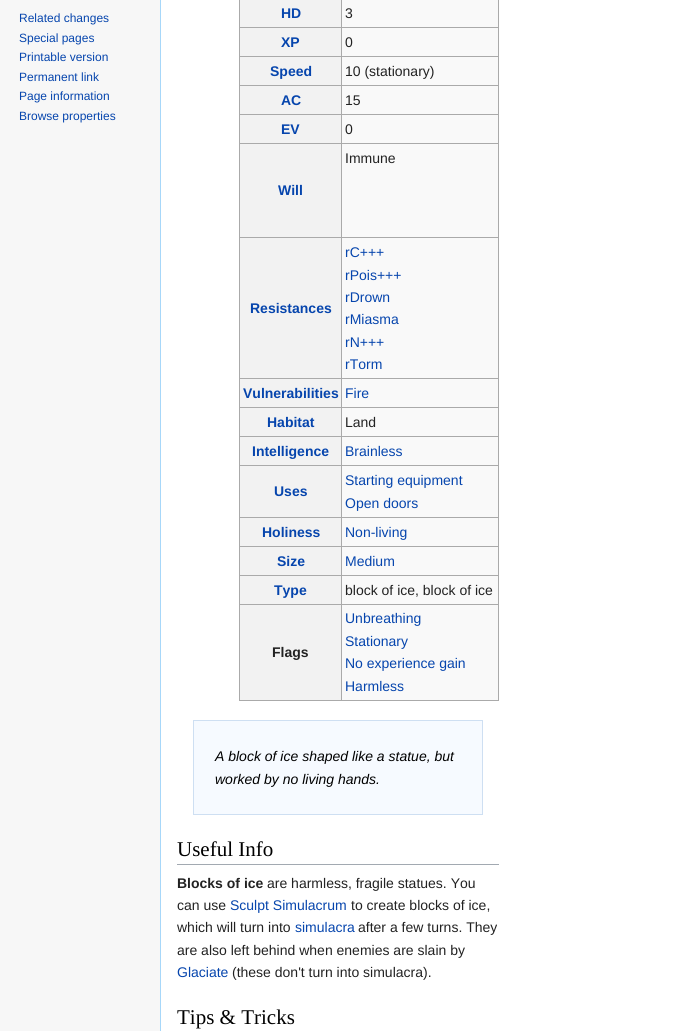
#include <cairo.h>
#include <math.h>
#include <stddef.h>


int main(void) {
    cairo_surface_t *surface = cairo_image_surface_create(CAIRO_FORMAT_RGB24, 695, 1031);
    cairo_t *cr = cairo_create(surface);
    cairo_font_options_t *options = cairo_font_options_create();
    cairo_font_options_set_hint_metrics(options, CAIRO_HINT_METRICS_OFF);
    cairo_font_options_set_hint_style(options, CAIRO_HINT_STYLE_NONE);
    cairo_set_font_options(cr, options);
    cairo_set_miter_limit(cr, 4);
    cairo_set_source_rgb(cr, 0.965, 0.965, 0.965);
    cairo_paint(cr);
    cairo_select_font_face(cr, "Liberation Sans", CAIRO_FONT_SLANT_NORMAL, CAIRO_FONT_WEIGHT_NORMAL);
    cairo_set_font_size(cr, 12);
    cairo_set_source_rgb(cr, 0.024, 0.271, 0.678);
    cairo_move_to(cr, 19, 22);
    cairo_show_text(cr, "Related changes");
    cairo_move_to(cr, 19, 42);
    cairo_show_text(cr, "Special pages");
    cairo_move_to(cr, 19, 61);
    cairo_show_text(cr, "Printable version");
    cairo_move_to(cr, 19, 81);
    cairo_show_text(cr, "Permanent link");
    cairo_move_to(cr, 19, 100);
    cairo_show_text(cr, "Page information");
    cairo_move_to(cr, 19, 120);
    cairo_show_text(cr, "Browse properties");
    cairo_set_source_rgb(cr, 1, 1, 1);
    cairo_rectangle(cr, 161, 0, 534, 1031);
    cairo_fill(cr);
    cairo_set_source_rgb(cr, 0.655, 0.843, 0.976);
    cairo_rectangle(cr, 160, 0, 1, 1031);
    cairo_fill(cr);
    cairo_set_source_rgb(cr, 0.976, 0.976, 0.976);
    cairo_rectangle(cr, 342, 0, 156, 700);
    cairo_fill(cr);
    cairo_set_source_rgb(cr, 0.949, 0.949, 0.949);
    cairo_rectangle(cr, 240, 0, 101, 27);
    cairo_fill(cr);
    cairo_select_font_face(cr, "Liberation Sans", CAIRO_FONT_SLANT_NORMAL, CAIRO_FONT_WEIGHT_BOLD);
    cairo_set_font_size(cr, 14);
    cairo_set_source_rgb(cr, 0.024, 0.271, 0.678);
    cairo_move_to(cr, 281, 18);
    cairo_show_text(cr, "HD");
    cairo_set_source_rgb(cr, 0.667, 0.667, 0.667);
    cairo_rectangle(cr, 341, 27, 158, 1);
    cairo_fill(cr);
    cairo_rectangle(cr, 341, 56, 158, 1);
    cairo_fill(cr);
    cairo_rectangle(cr, 341, 85, 158, 1);
    cairo_fill(cr);
    cairo_rectangle(cr, 341, 114, 158, 1);
    cairo_fill(cr);
    cairo_rectangle(cr, 341, 143, 158, 1);
    cairo_fill(cr);
    cairo_rectangle(cr, 341, 237, 158, 1);
    cairo_fill(cr);
    cairo_rectangle(cr, 341, 378, 158, 1);
    cairo_fill(cr);
    cairo_rectangle(cr, 341, 407, 158, 1);
    cairo_fill(cr);
    cairo_rectangle(cr, 341, 436, 158, 1);
    cairo_fill(cr);
    cairo_rectangle(cr, 341, 465, 158, 1);
    cairo_fill(cr);
    cairo_rectangle(cr, 341, 517, 158, 1);
    cairo_fill(cr);
    cairo_rectangle(cr, 341, 546, 158, 1);
    cairo_fill(cr);
    cairo_rectangle(cr, 341, 575, 158, 1);
    cairo_fill(cr);
    cairo_rectangle(cr, 341, 604, 158, 1);
    cairo_fill(cr);
    cairo_rectangle(cr, 498, 604, 1, 97);
    cairo_fill(cr);
    cairo_rectangle(cr, 341, 700, 158, 1);
    cairo_fill(cr);
    cairo_rectangle(cr, 341, 604, 1, 97);
    cairo_fill(cr);
    cairo_rectangle(cr, 239, 604, 103, 1);
    cairo_fill(cr);
    cairo_rectangle(cr, 341, 575, 1, 30);
    cairo_fill(cr);
    cairo_rectangle(cr, 239, 575, 103, 1);
    cairo_fill(cr);
    cairo_rectangle(cr, 341, 546, 1, 30);
    cairo_fill(cr);
    cairo_rectangle(cr, 239, 546, 103, 1);
    cairo_fill(cr);
    cairo_rectangle(cr, 341, 517, 1, 30);
    cairo_fill(cr);
    cairo_rectangle(cr, 239, 517, 103, 1);
    cairo_fill(cr);
    cairo_rectangle(cr, 341, 465, 1, 53);
    cairo_fill(cr);
    cairo_rectangle(cr, 239, 465, 103, 1);
    cairo_fill(cr);
    cairo_rectangle(cr, 341, 436, 1, 30);
    cairo_fill(cr);
    cairo_rectangle(cr, 239, 436, 103, 1);
    cairo_fill(cr);
    cairo_rectangle(cr, 341, 407, 1, 30);
    cairo_fill(cr);
    cairo_rectangle(cr, 239, 407, 103, 1);
    cairo_fill(cr);
    cairo_rectangle(cr, 341, 378, 1, 30);
    cairo_fill(cr);
    cairo_rectangle(cr, 239, 378, 103, 1);
    cairo_fill(cr);
    cairo_rectangle(cr, 341, 237, 1, 142);
    cairo_fill(cr);
    cairo_rectangle(cr, 239, 237, 103, 1);
    cairo_fill(cr);
    cairo_rectangle(cr, 341, 143, 1, 95);
    cairo_fill(cr);
    cairo_rectangle(cr, 239, 143, 103, 1);
    cairo_fill(cr);
    cairo_rectangle(cr, 341, 114, 1, 30);
    cairo_fill(cr);
    cairo_rectangle(cr, 239, 114, 103, 1);
    cairo_fill(cr);
    cairo_rectangle(cr, 341, 85, 1, 30);
    cairo_fill(cr);
    cairo_rectangle(cr, 239, 85, 103, 1);
    cairo_fill(cr);
    cairo_rectangle(cr, 341, 56, 1, 30);
    cairo_fill(cr);
    cairo_rectangle(cr, 239, 56, 103, 1);
    cairo_fill(cr);
    cairo_rectangle(cr, 341, 27, 1, 30);
    cairo_fill(cr);
    cairo_rectangle(cr, 239, 27, 103, 1);
    cairo_fill(cr);
    cairo_rectangle(cr, 341, 0, 1, 28);
    cairo_fill(cr);
    cairo_select_font_face(cr, "Liberation Sans", CAIRO_FONT_SLANT_NORMAL, CAIRO_FONT_WEIGHT_NORMAL);
    cairo_set_source_rgb(cr, 0.133, 0.133, 0.133);
    cairo_move_to(cr, 345, 18);
    cairo_show_text(cr, "3");
    cairo_set_source_rgb(cr, 0.949, 0.949, 0.949);
    cairo_rectangle(cr, 240, 28, 101, 28);
    cairo_fill(cr);
    cairo_set_source_rgb(cr, 0.667, 0.667, 0.667);
    cairo_rectangle(cr, 239, 700, 103, 1);
    cairo_fill(cr);
    cairo_rectangle(cr, 239, 604, 1, 97);
    cairo_fill(cr);
    cairo_rectangle(cr, 239, 575, 1, 30);
    cairo_fill(cr);
    cairo_rectangle(cr, 239, 546, 1, 30);
    cairo_fill(cr);
    cairo_rectangle(cr, 239, 517, 1, 30);
    cairo_fill(cr);
    cairo_rectangle(cr, 239, 465, 1, 53);
    cairo_fill(cr);
    cairo_rectangle(cr, 239, 436, 1, 30);
    cairo_fill(cr);
    cairo_rectangle(cr, 239, 407, 1, 30);
    cairo_fill(cr);
    cairo_rectangle(cr, 239, 378, 1, 30);
    cairo_fill(cr);
    cairo_rectangle(cr, 239, 237, 1, 142);
    cairo_fill(cr);
    cairo_rectangle(cr, 239, 143, 1, 95);
    cairo_fill(cr);
    cairo_rectangle(cr, 239, 114, 1, 30);
    cairo_fill(cr);
    cairo_rectangle(cr, 239, 85, 1, 30);
    cairo_fill(cr);
    cairo_rectangle(cr, 239, 56, 1, 30);
    cairo_fill(cr);
    cairo_rectangle(cr, 239, 0, 1, 57);
    cairo_fill(cr);
    cairo_select_font_face(cr, "Liberation Sans", CAIRO_FONT_SLANT_NORMAL, CAIRO_FONT_WEIGHT_BOLD);
    cairo_set_source_rgb(cr, 0.024, 0.271, 0.678);
    cairo_move_to(cr, 281, 47);
    cairo_show_text(cr, "XP");
    cairo_set_source_rgb(cr, 0.667, 0.667, 0.667);
    cairo_rectangle(cr, 498, 575, 1, 30);
    cairo_fill(cr);
    cairo_rectangle(cr, 498, 546, 1, 30);
    cairo_fill(cr);
    cairo_rectangle(cr, 498, 517, 1, 30);
    cairo_fill(cr);
    cairo_rectangle(cr, 498, 465, 1, 53);
    cairo_fill(cr);
    cairo_rectangle(cr, 498, 436, 1, 30);
    cairo_fill(cr);
    cairo_rectangle(cr, 498, 407, 1, 30);
    cairo_fill(cr);
    cairo_rectangle(cr, 498, 378, 1, 30);
    cairo_fill(cr);
    cairo_rectangle(cr, 498, 237, 1, 142);
    cairo_fill(cr);
    cairo_rectangle(cr, 498, 143, 1, 95);
    cairo_fill(cr);
    cairo_rectangle(cr, 498, 114, 1, 30);
    cairo_fill(cr);
    cairo_rectangle(cr, 498, 85, 1, 30);
    cairo_fill(cr);
    cairo_rectangle(cr, 498, 56, 1, 30);
    cairo_fill(cr);
    cairo_rectangle(cr, 498, 0, 1, 57);
    cairo_fill(cr);
    cairo_select_font_face(cr, "Liberation Sans", CAIRO_FONT_SLANT_NORMAL, CAIRO_FONT_WEIGHT_NORMAL);
    cairo_set_source_rgb(cr, 0.133, 0.133, 0.133);
    cairo_move_to(cr, 345, 47);
    cairo_show_text(cr, "0");
    cairo_set_source_rgb(cr, 0.949, 0.949, 0.949);
    cairo_rectangle(cr, 240, 57, 101, 28);
    cairo_fill(cr);
    cairo_select_font_face(cr, "Liberation Sans", CAIRO_FONT_SLANT_NORMAL, CAIRO_FONT_WEIGHT_BOLD);
    cairo_set_source_rgb(cr, 0.024, 0.271, 0.678);
    cairo_move_to(cr, 270, 76);
    cairo_show_text(cr, "Speed");
    cairo_select_font_face(cr, "Liberation Sans", CAIRO_FONT_SLANT_NORMAL, CAIRO_FONT_WEIGHT_NORMAL);
    cairo_set_source_rgb(cr, 0.133, 0.133, 0.133);
    cairo_move_to(cr, 345, 76);
    cairo_show_text(cr, "10 (stationary)");
    cairo_set_source_rgb(cr, 0.949, 0.949, 0.949);
    cairo_rectangle(cr, 240, 86, 101, 28);
    cairo_fill(cr);
    cairo_select_font_face(cr, "Liberation Sans", CAIRO_FONT_SLANT_NORMAL, CAIRO_FONT_WEIGHT_BOLD);
    cairo_set_source_rgb(cr, 0.024, 0.271, 0.678);
    cairo_move_to(cr, 281, 105);
    cairo_show_text(cr, "AC");
    cairo_select_font_face(cr, "Liberation Sans", CAIRO_FONT_SLANT_NORMAL, CAIRO_FONT_WEIGHT_NORMAL);
    cairo_set_source_rgb(cr, 0.133, 0.133, 0.133);
    cairo_move_to(cr, 345, 105);
    cairo_show_text(cr, "15");
    cairo_set_source_rgb(cr, 0.949, 0.949, 0.949);
    cairo_rectangle(cr, 240, 115, 101, 28);
    cairo_fill(cr);
    cairo_select_font_face(cr, "Liberation Sans", CAIRO_FONT_SLANT_NORMAL, CAIRO_FONT_WEIGHT_BOLD);
    cairo_set_source_rgb(cr, 0.024, 0.271, 0.678);
    cairo_move_to(cr, 281, 134);
    cairo_show_text(cr, "EV");
    cairo_select_font_face(cr, "Liberation Sans", CAIRO_FONT_SLANT_NORMAL, CAIRO_FONT_WEIGHT_NORMAL);
    cairo_set_source_rgb(cr, 0.133, 0.133, 0.133);
    cairo_move_to(cr, 345, 134);
    cairo_show_text(cr, "0");
    cairo_move_to(cr, 345, 163);
    cairo_show_text(cr, "Immune");
    cairo_set_source_rgb(cr, 0.949, 0.949, 0.949);
    cairo_rectangle(cr, 240, 144, 101, 93);
    cairo_fill(cr);
    cairo_select_font_face(cr, "Liberation Sans", CAIRO_FONT_SLANT_NORMAL, CAIRO_FONT_WEIGHT_BOLD);
    cairo_set_source_rgb(cr, 0.024, 0.271, 0.678);
    cairo_move_to(cr, 278, 195);
    cairo_show_text(cr, "Will");
    cairo_set_source_rgb(cr, 0.949, 0.949, 0.949);
    cairo_rectangle(cr, 240, 238, 101, 140);
    cairo_fill(cr);
    cairo_set_source_rgb(cr, 0.024, 0.271, 0.678);
    cairo_move_to(cr, 250, 313);
    cairo_show_text(cr, "Resistances");
    cairo_select_font_face(cr, "Liberation Sans", CAIRO_FONT_SLANT_NORMAL, CAIRO_FONT_WEIGHT_NORMAL);
    cairo_move_to(cr, 345, 257);
    cairo_show_text(cr, "rC+++");
    cairo_move_to(cr, 345, 280);
    cairo_show_text(cr, "rPois+++");
    cairo_move_to(cr, 345, 302);
    cairo_show_text(cr, "rDrown");
    cairo_move_to(cr, 345, 324);
    cairo_show_text(cr, "rMiasma");
    cairo_move_to(cr, 345, 347);
    cairo_show_text(cr, "rN+++");
    cairo_move_to(cr, 345, 369);
    cairo_show_text(cr, "rTorm");
    cairo_set_source_rgb(cr, 0.949, 0.949, 0.949);
    cairo_rectangle(cr, 240, 379, 101, 28);
    cairo_fill(cr);
    cairo_select_font_face(cr, "Liberation Sans", CAIRO_FONT_SLANT_NORMAL, CAIRO_FONT_WEIGHT_BOLD);
    cairo_set_source_rgb(cr, 0.024, 0.271, 0.678);
    cairo_move_to(cr, 243, 398);
    cairo_show_text(cr, "Vulnerabilities");
    cairo_select_font_face(cr, "Liberation Sans", CAIRO_FONT_SLANT_NORMAL, CAIRO_FONT_WEIGHT_NORMAL);
    cairo_move_to(cr, 345, 398);
    cairo_show_text(cr, "Fire");
    cairo_set_source_rgb(cr, 0.949, 0.949, 0.949);
    cairo_rectangle(cr, 240, 408, 101, 28);
    cairo_fill(cr);
    cairo_select_font_face(cr, "Liberation Sans", CAIRO_FONT_SLANT_NORMAL, CAIRO_FONT_WEIGHT_BOLD);
    cairo_set_source_rgb(cr, 0.024, 0.271, 0.678);
    cairo_move_to(cr, 267, 427);
    cairo_show_text(cr, "Habitat");
    cairo_select_font_face(cr, "Liberation Sans", CAIRO_FONT_SLANT_NORMAL, CAIRO_FONT_WEIGHT_NORMAL);
    cairo_set_source_rgb(cr, 0.133, 0.133, 0.133);
    cairo_move_to(cr, 345, 427);
    cairo_show_text(cr, "Land");
    cairo_set_source_rgb(cr, 0.949, 0.949, 0.949);
    cairo_rectangle(cr, 240, 437, 101, 28);
    cairo_fill(cr);
    cairo_select_font_face(cr, "Liberation Sans", CAIRO_FONT_SLANT_NORMAL, CAIRO_FONT_WEIGHT_BOLD);
    cairo_set_source_rgb(cr, 0.024, 0.271, 0.678);
    cairo_move_to(cr, 252, 456);
    cairo_show_text(cr, "Intelligence");
    cairo_select_font_face(cr, "Liberation Sans", CAIRO_FONT_SLANT_NORMAL, CAIRO_FONT_WEIGHT_NORMAL);
    cairo_move_to(cr, 345, 456);
    cairo_show_text(cr, "Brainless");
    cairo_set_source_rgb(cr, 0.949, 0.949, 0.949);
    cairo_rectangle(cr, 240, 466, 101, 51);
    cairo_fill(cr);
    cairo_select_font_face(cr, "Liberation Sans", CAIRO_FONT_SLANT_NORMAL, CAIRO_FONT_WEIGHT_BOLD);
    cairo_set_source_rgb(cr, 0.024, 0.271, 0.678);
    cairo_move_to(cr, 274, 496);
    cairo_show_text(cr, "Uses");
    cairo_select_font_face(cr, "Liberation Sans", CAIRO_FONT_SLANT_NORMAL, CAIRO_FONT_WEIGHT_NORMAL);
    cairo_move_to(cr, 345, 485);
    cairo_show_text(cr, "Starting equipment");
    cairo_move_to(cr, 345, 508);
    cairo_show_text(cr, "Open doors");
    cairo_set_source_rgb(cr, 0.949, 0.949, 0.949);
    cairo_rectangle(cr, 240, 518, 101, 28);
    cairo_fill(cr);
    cairo_select_font_face(cr, "Liberation Sans", CAIRO_FONT_SLANT_NORMAL, CAIRO_FONT_WEIGHT_BOLD);
    cairo_set_source_rgb(cr, 0.024, 0.271, 0.678);
    cairo_move_to(cr, 262, 537);
    cairo_show_text(cr, "Holiness");
    cairo_select_font_face(cr, "Liberation Sans", CAIRO_FONT_SLANT_NORMAL, CAIRO_FONT_WEIGHT_NORMAL);
    cairo_move_to(cr, 345, 537);
    cairo_show_text(cr, "Non-living");
    cairo_set_source_rgb(cr, 0.949, 0.949, 0.949);
    cairo_rectangle(cr, 240, 547, 101, 28);
    cairo_fill(cr);
    cairo_select_font_face(cr, "Liberation Sans", CAIRO_FONT_SLANT_NORMAL, CAIRO_FONT_WEIGHT_BOLD);
    cairo_set_source_rgb(cr, 0.024, 0.271, 0.678);
    cairo_move_to(cr, 277, 566);
    cairo_show_text(cr, "Size");
    cairo_select_font_face(cr, "Liberation Sans", CAIRO_FONT_SLANT_NORMAL, CAIRO_FONT_WEIGHT_NORMAL);
    cairo_move_to(cr, 345, 566);
    cairo_show_text(cr, "Medium");
    cairo_set_source_rgb(cr, 0.949, 0.949, 0.949);
    cairo_rectangle(cr, 240, 576, 101, 28);
    cairo_fill(cr);
    cairo_select_font_face(cr, "Liberation Sans", CAIRO_FONT_SLANT_NORMAL, CAIRO_FONT_WEIGHT_BOLD);
    cairo_set_source_rgb(cr, 0.024, 0.271, 0.678);
    cairo_move_to(cr, 274, 595);
    cairo_show_text(cr, "Type");
    cairo_select_font_face(cr, "Liberation Sans", CAIRO_FONT_SLANT_NORMAL, CAIRO_FONT_WEIGHT_NORMAL);
    cairo_set_source_rgb(cr, 0.133, 0.133, 0.133);
    cairo_move_to(cr, 345, 595);
    cairo_show_text(cr, "block of ice, block of ice");
    cairo_set_source_rgb(cr, 0.949, 0.949, 0.949);
    cairo_rectangle(cr, 240, 605, 101, 95);
    cairo_fill(cr);
    cairo_select_font_face(cr, "Liberation Sans", CAIRO_FONT_SLANT_NORMAL, CAIRO_FONT_WEIGHT_BOLD);
    cairo_set_source_rgb(cr, 0.133, 0.133, 0.133);
    cairo_move_to(cr, 272, 657);
    cairo_show_text(cr, "Flags");
    cairo_select_font_face(cr, "Liberation Sans", CAIRO_FONT_SLANT_NORMAL, CAIRO_FONT_WEIGHT_NORMAL);
    cairo_set_source_rgb(cr, 0.024, 0.271, 0.678);
    cairo_move_to(cr, 345, 623);
    cairo_show_text(cr, "Unbreathing");
    cairo_move_to(cr, 345, 646);
    cairo_show_text(cr, "Stationary");
    cairo_move_to(cr, 345, 668);
    cairo_show_text(cr, "No experience gain");
    cairo_move_to(cr, 345, 691);
    cairo_show_text(cr, "Harmless");
    cairo_set_source_rgb(cr, 0.961, 0.98, 1);
    cairo_rectangle(cr, 193.5, 720.5, 289, 94);
    cairo_fill_preserve(cr);
    cairo_set_source_rgb(cr, 0.808, 0.875, 0.949);
    cairo_set_line_width(cr, 1);
    cairo_stroke(cr);
    cairo_select_font_face(cr, "Liberation Sans", CAIRO_FONT_SLANT_ITALIC, CAIRO_FONT_WEIGHT_NORMAL);
    cairo_set_source_rgb(cr, 0, 0, 0);
    cairo_move_to(cr, 215, 761);
    cairo_show_text(cr, "A block of ice shaped like a statue, but");
    cairo_move_to(cr, 215, 784);
    cairo_show_text(cr, "worked by no living hands.");
    cairo_set_source_rgb(cr, 0.635, 0.663, 0.694);
    cairo_rectangle(cr, 177, 864, 322, 1);
    cairo_fill(cr);
    cairo_select_font_face(cr, "Liberation Serif", CAIRO_FONT_SLANT_NORMAL, CAIRO_FONT_WEIGHT_NORMAL);
    cairo_set_font_size(cr, 21);
    cairo_set_source_rgb(cr, 0, 0, 0);
    cairo_move_to(cr, 177, 856);
    cairo_show_text(cr, "Useful Info");
    cairo_select_font_face(cr, "Liberation Sans", CAIRO_FONT_SLANT_NORMAL, CAIRO_FONT_WEIGHT_BOLD);
    cairo_set_font_size(cr, 14);
    cairo_set_source_rgb(cr, 0.133, 0.133, 0.133);
    cairo_move_to(cr, 177, 888);
    cairo_show_text(cr, "Blocks of ice");
    cairo_select_font_face(cr, "Liberation Sans", CAIRO_FONT_SLANT_NORMAL, CAIRO_FONT_WEIGHT_NORMAL);
    cairo_move_to(cr, 267, 888);
    cairo_show_text(cr, "are harmless, fragile statues. You");
    cairo_move_to(cr, 177, 910);
    cairo_show_text(cr, "can use");
    cairo_set_source_rgb(cr, 0.024, 0.271, 0.678);
    cairo_move_to(cr, 230, 910);
    cairo_show_text(cr, "Sculpt Simulacrum");
    cairo_set_source_rgb(cr, 0.133, 0.133, 0.133);
    cairo_move_to(cr, 351, 910);
    cairo_show_text(cr, "to create blocks of ice,");
    cairo_move_to(cr, 177, 932);
    cairo_show_text(cr, "which will turn into");
    cairo_set_source_rgb(cr, 0.024, 0.271, 0.678);
    cairo_move_to(cr, 295, 932);
    cairo_show_text(cr, "simulacra");
    cairo_set_source_rgb(cr, 0.133, 0.133, 0.133);
    cairo_move_to(cr, 358, 932);
    cairo_show_text(cr, "after a few turns. They");
    cairo_move_to(cr, 177, 955);
    cairo_show_text(cr, "are also left behind when enemies are slain by");
    cairo_set_source_rgb(cr, 0.024, 0.271, 0.678);
    cairo_move_to(cr, 177, 977);
    cairo_show_text(cr, "Glaciate");
    cairo_set_source_rgb(cr, 0.133, 0.133, 0.133);
    cairo_move_to(cr, 232, 977);
    cairo_show_text(cr, "(these don't turn into simulacra).");
    cairo_select_font_face(cr, "Liberation Serif", CAIRO_FONT_SLANT_NORMAL, CAIRO_FONT_WEIGHT_NORMAL);
    cairo_set_font_size(cr, 21);
    cairo_set_source_rgb(cr, 0, 0, 0);
    cairo_move_to(cr, 177, 1024);
    cairo_show_text(cr, "Tips & Tricks");
    cairo_surface_write_to_png(surface, "page.png");
    cairo_font_options_destroy(options);
    cairo_destroy(cr);
    cairo_surface_destroy(surface);
    return 0;
}
